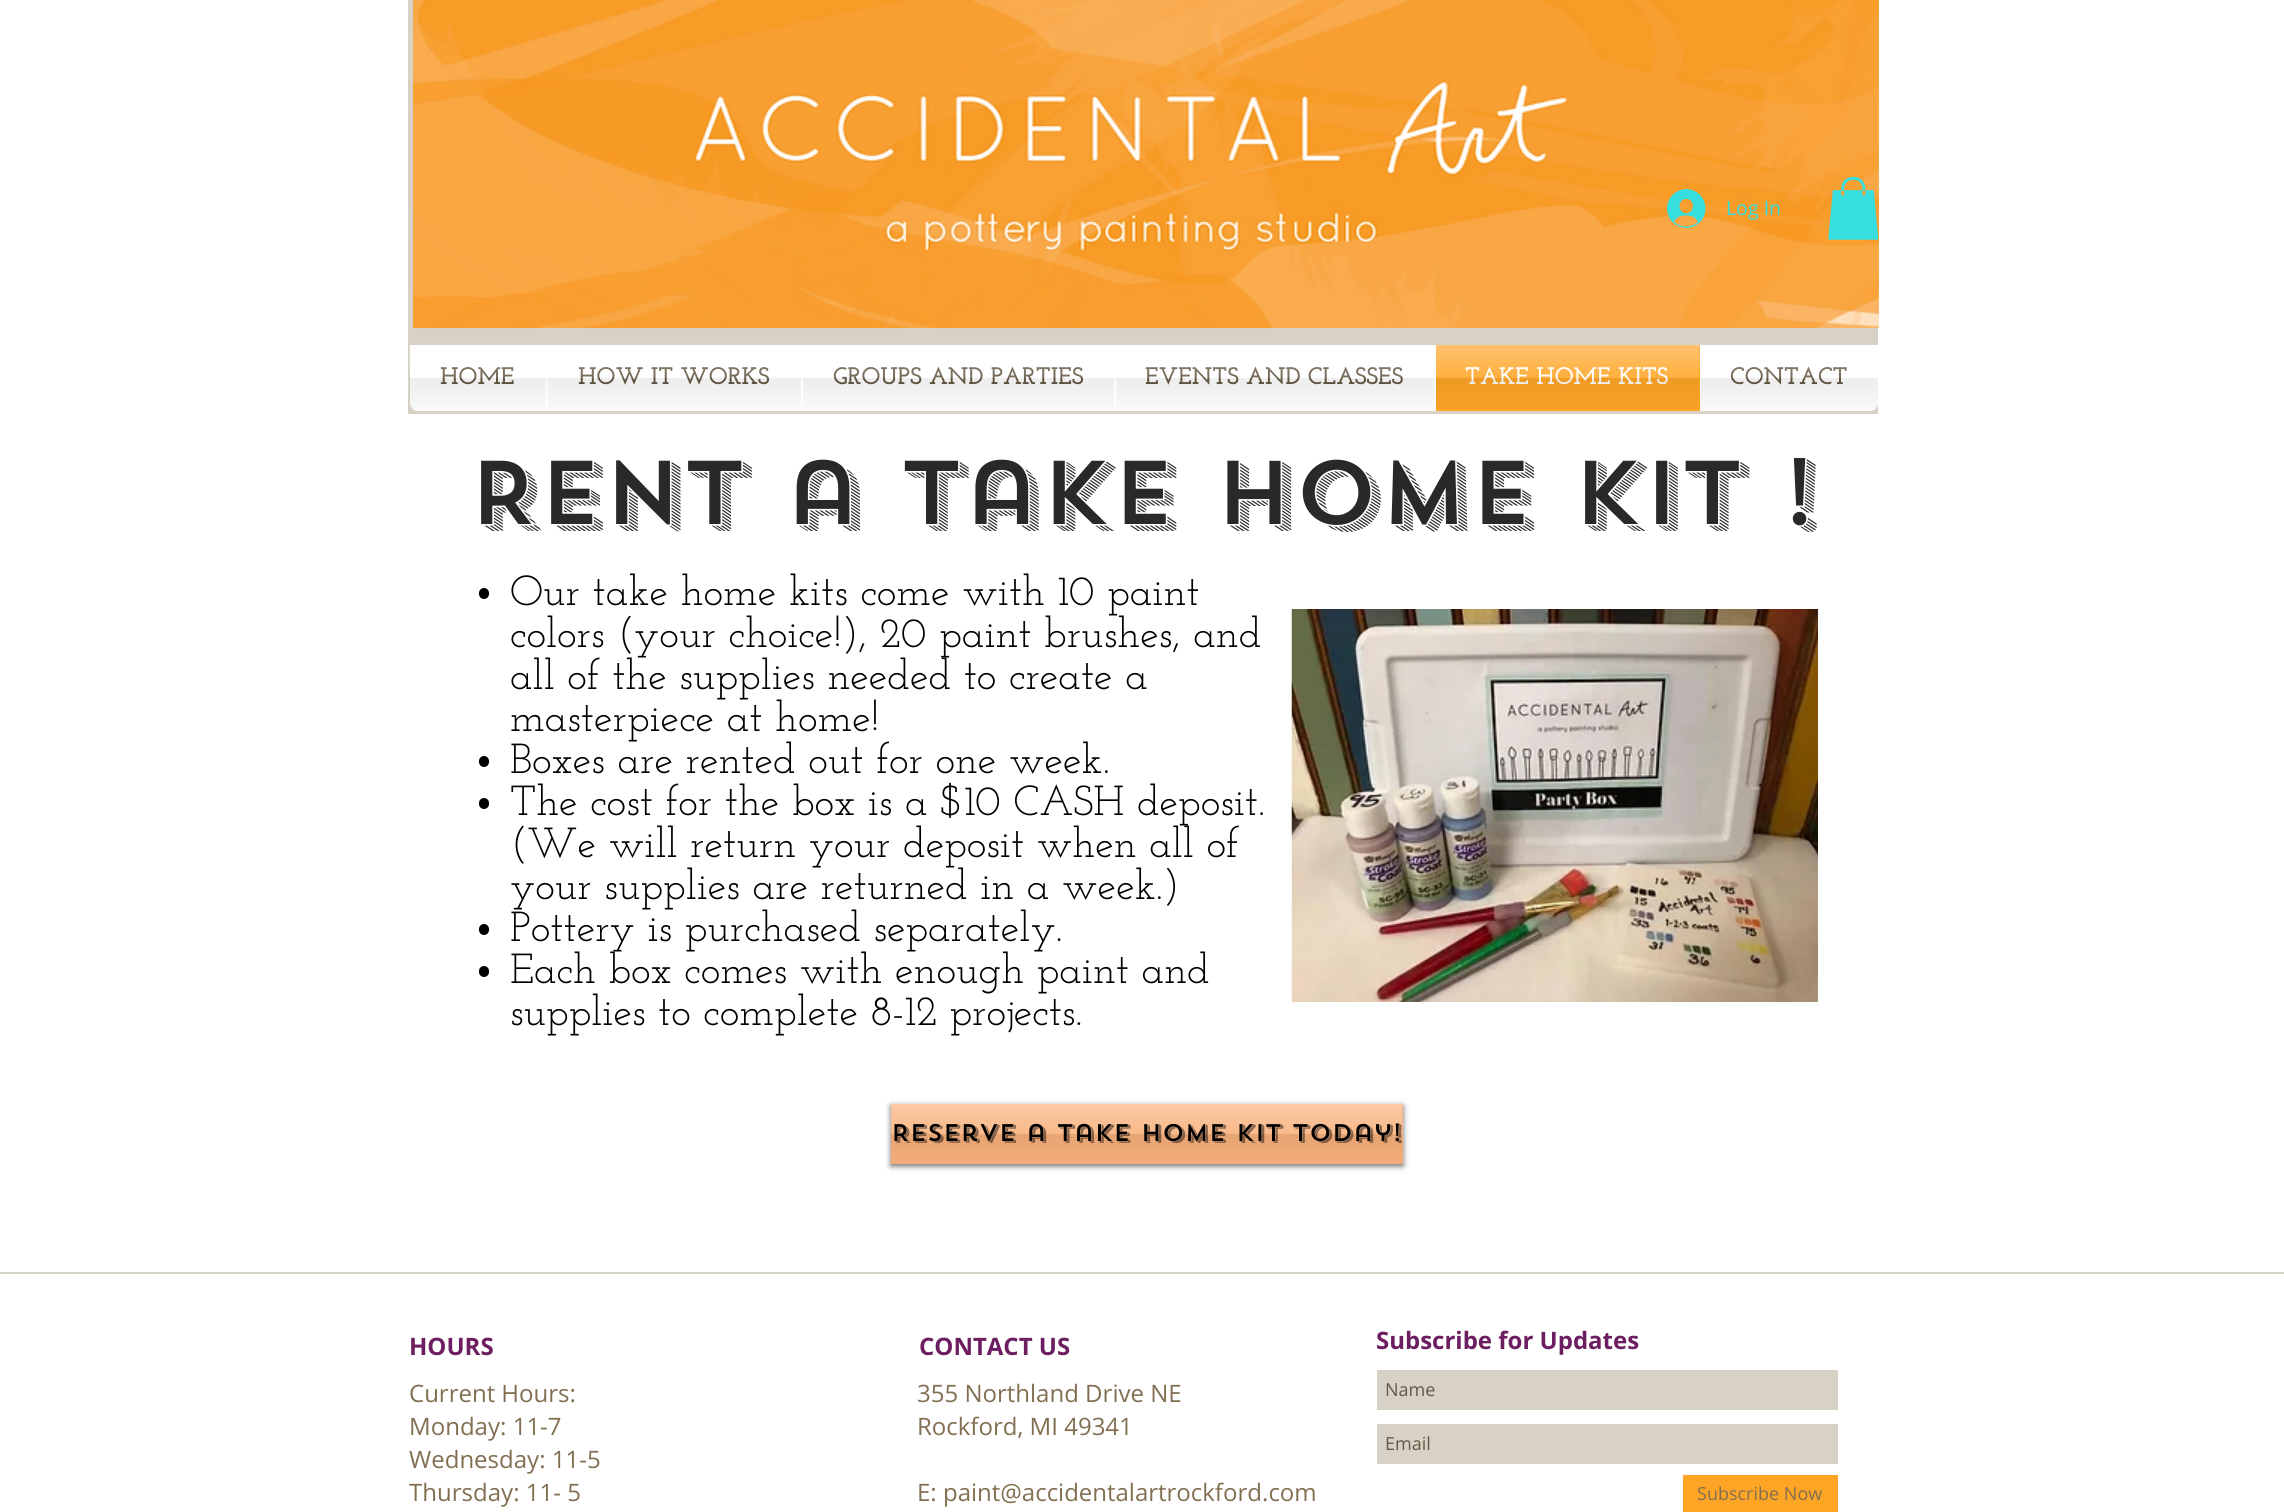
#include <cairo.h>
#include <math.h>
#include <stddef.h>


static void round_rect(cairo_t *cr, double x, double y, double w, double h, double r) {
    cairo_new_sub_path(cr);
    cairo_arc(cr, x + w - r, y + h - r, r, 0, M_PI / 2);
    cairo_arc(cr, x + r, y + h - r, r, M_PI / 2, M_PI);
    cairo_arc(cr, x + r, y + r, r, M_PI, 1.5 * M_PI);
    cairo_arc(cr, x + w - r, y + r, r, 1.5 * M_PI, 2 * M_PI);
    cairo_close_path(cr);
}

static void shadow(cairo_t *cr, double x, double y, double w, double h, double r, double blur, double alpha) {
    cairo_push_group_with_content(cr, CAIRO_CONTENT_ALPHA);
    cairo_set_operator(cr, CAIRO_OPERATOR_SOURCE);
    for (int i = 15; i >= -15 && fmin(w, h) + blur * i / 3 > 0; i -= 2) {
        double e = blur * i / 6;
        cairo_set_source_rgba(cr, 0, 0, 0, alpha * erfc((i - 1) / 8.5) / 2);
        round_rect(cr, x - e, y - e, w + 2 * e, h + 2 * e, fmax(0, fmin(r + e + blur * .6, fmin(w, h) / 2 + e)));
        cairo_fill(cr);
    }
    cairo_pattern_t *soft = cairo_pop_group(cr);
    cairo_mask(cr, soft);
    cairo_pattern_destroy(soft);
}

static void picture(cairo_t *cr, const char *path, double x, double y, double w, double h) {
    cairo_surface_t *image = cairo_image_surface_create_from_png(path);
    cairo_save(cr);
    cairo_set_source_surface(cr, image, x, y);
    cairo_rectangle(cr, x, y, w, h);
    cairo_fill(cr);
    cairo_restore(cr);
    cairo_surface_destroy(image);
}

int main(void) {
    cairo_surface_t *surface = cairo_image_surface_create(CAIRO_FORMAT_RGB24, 2284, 1512);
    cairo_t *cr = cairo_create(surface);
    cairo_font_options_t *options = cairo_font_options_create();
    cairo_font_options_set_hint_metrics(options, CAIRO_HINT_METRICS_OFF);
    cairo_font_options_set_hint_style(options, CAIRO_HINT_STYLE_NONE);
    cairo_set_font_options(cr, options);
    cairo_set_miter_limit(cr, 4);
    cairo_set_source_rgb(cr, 1, 1, 1);
    cairo_paint(cr);
    cairo_set_source_rgb(cr, 0.847, 0.82, 0.776);
    cairo_rectangle(cr, 408, 0, 1470, 414);
    cairo_fill(cr);
    picture(cr, "img1.png", 413, 0, 1467, 329);
    picture(cr, "img2.png", 1667, 189, 39, 39);
    cairo_select_font_face(cr, "Open Sans", CAIRO_FONT_SLANT_NORMAL, CAIRO_FONT_WEIGHT_NORMAL);
    cairo_set_font_size(cr, 19.5);
    cairo_set_source_rgb(cr, 0.216, 0.871, 0.871);
    cairo_move_to(cr, 1726, 215);
    cairo_show_text(cr, "Log In");
    picture(cr, "img3.png", 1828, 177, 51, 63);
    picture(cr, "img4.png", 409, 345, 1469, 64);
    cairo_set_source_rgb(cr, 1, 1, 1);
    cairo_new_path(cr);
    cairo_move_to(cr, 410, 345);
    cairo_line_to(cr, 546, 345);
    cairo_line_to(cr, 546, 411);
    cairo_line_to(cr, 418, 411);
    cairo_curve_to(cr, 413.5, 411, 410, 407.5, 410, 403);
    cairo_close_path(cr);
    cairo_fill(cr);
    cairo_select_font_face(cr, "Josefin Slab", CAIRO_FONT_SLANT_NORMAL, CAIRO_FONT_WEIGHT_BOLD);
    cairo_set_font_size(cr, 24);
    cairo_set_source_rgb(cr, 0.392, 0.345, 0.267);
    cairo_move_to(cr, 440, 384);
    cairo_show_text(cr, "HOME");
    picture(cr, "img5.png", 409, 345, 137, 64);
    cairo_set_source_rgb(cr, 1, 1, 1);
    cairo_rectangle(cr, 546, 345, 890, 66);
    cairo_fill(cr);
    cairo_set_source_rgb(cr, 0.392, 0.345, 0.267);
    cairo_move_to(cr, 578, 384);
    cairo_show_text(cr, "HOW IT WORKS");
    picture(cr, "img6.png", 547, 367, 254, 42);
    cairo_move_to(cr, 833, 384);
    cairo_show_text(cr, "GROUPS AND PARTIES");
    picture(cr, "img7.png", 802, 366, 313, 43);
    cairo_move_to(cr, 1145, 384);
    cairo_show_text(cr, "EVENTS AND CLASSES");
    picture(cr, "img8.png", 1116, 366, 318, 43);
    cairo_set_source_rgb(cr, 1, 0.647, 0.149);
    cairo_rectangle(cr, 1436, 345, 264, 66);
    cairo_fill(cr);
    cairo_set_source_rgb(cr, 1, 1, 1);
    cairo_move_to(cr, 1465, 384);
    cairo_show_text(cr, "TAKE HOME KITS");
    picture(cr, "img9.png", 1435, 345, 265, 64);
    cairo_new_path(cr);
    cairo_move_to(cr, 1700, 345);
    cairo_line_to(cr, 1878, 345);
    cairo_line_to(cr, 1878, 403);
    cairo_curve_to(cr, 1878, 407.5, 1874.5, 411, 1870, 411);
    cairo_line_to(cr, 1700, 411);
    cairo_close_path(cr);
    cairo_fill(cr);
    cairo_set_source_rgb(cr, 0.392, 0.345, 0.267);
    cairo_move_to(cr, 1730, 384);
    cairo_show_text(cr, "CONTACT");
    picture(cr, "img10.png", 1701, 366, 177, 43);
    cairo_select_font_face(cr, "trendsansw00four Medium", CAIRO_FONT_SLANT_NORMAL, CAIRO_FONT_WEIGHT_NORMAL);
    cairo_set_font_size(cr, 90);
    cairo_set_source_rgb(cr, 0.161, 0.161, 0.161);
    cairo_move_to(cr, 468, 524);
    cairo_show_text(cr, "REnt a take home kit !");
    cairo_set_source_rgb(cr, 0, 0, 0);
    round_rect(cr, 479, 588, 10, 11, 5);
    cairo_fill(cr);
    cairo_select_font_face(cr, "Josefin Slab", CAIRO_FONT_SLANT_NORMAL, CAIRO_FONT_WEIGHT_NORMAL);
    cairo_set_font_size(cr, 42);
    cairo_move_to(cr, 510, 605);
    cairo_show_text(cr, "Our take home kits come with 10 paint");
    cairo_move_to(cr, 510, 647);
    cairo_show_text(cr, "colors (your choice!), 20 paint brushes, and");
    cairo_move_to(cr, 510, 689);
    cairo_show_text(cr, "all of the supplies needed to create a");
    cairo_move_to(cr, 510, 731);
    cairo_show_text(cr, "masterpiece at home!");
    round_rect(cr, 479, 756, 10, 11, 5);
    cairo_fill(cr);
    cairo_move_to(cr, 510, 773);
    cairo_show_text(cr, "Boxes are rented out for one week.");
    round_rect(cr, 479, 798, 10, 11, 5);
    cairo_fill(cr);
    cairo_move_to(cr, 510, 815);
    cairo_show_text(cr, "The cost for the box is a $10 CASH deposit.");
    cairo_move_to(cr, 510, 857);
    cairo_show_text(cr, "(We will return your deposit when all of");
    cairo_move_to(cr, 510, 899);
    cairo_show_text(cr, "your supplies are returned in a week.)");
    round_rect(cr, 479, 924, 10, 11, 5);
    cairo_fill(cr);
    cairo_move_to(cr, 510, 941);
    cairo_show_text(cr, "Pottery is purchased separately.");
    round_rect(cr, 479, 966, 10, 11, 5);
    cairo_fill(cr);
    cairo_move_to(cr, 510, 983);
    cairo_show_text(cr, "Each box comes with enough paint and");
    cairo_move_to(cr, 510, 1025);
    cairo_show_text(cr, "supplies to complete 8-12 projects.");
    picture(cr, "img11.png", 1291, 609, 527, 393);
    cairo_set_source_rgb(cr, 0, 0, 0);
    shadow(cr, 891, 1106, 512, 60, 0, 3, 0.6);
    cairo_set_source_rgb(cr, 0.976, 0.694, 0.486);
    cairo_rectangle(cr, 891, 1104, 512, 60);
    cairo_fill(cr);
    picture(cr, "img12.png", 891, 1104, 512, 60);
    cairo_select_font_face(cr, "trendsansw00four Medium", CAIRO_FONT_SLANT_NORMAL, CAIRO_FONT_WEIGHT_NORMAL);
    cairo_set_font_size(cr, 24);
    cairo_set_source_rgb(cr, 0, 0, 0);
    cairo_move_to(cr, 891, 1141);
    cairo_show_text(cr, "Reserve a take home kit today!");
    cairo_set_source_rgb(cr, 0.847, 0.82, 0.776);
    cairo_rectangle(cr, 0, 1272, 2284, 2);
    cairo_fill(cr);
    cairo_select_font_face(cr, "Open Sans", CAIRO_FONT_SLANT_NORMAL, CAIRO_FONT_WEIGHT_BOLD);
    cairo_set_source_rgb(cr, 0.427, 0.118, 0.38);
    cairo_move_to(cr, 409, 1355);
    cairo_show_text(cr, "HOURS");
    cairo_move_to(cr, 919, 1355);
    cairo_show_text(cr, "CONTACT US");
    cairo_move_to(cr, 1376, 1349);
    cairo_show_text(cr, "Subscribe for Updates");
    cairo_set_source_rgb(cr, 0.847, 0.82, 0.776);
    cairo_rectangle(cr, 1377, 1370, 461, 40);
    cairo_fill(cr);
    cairo_select_font_face(cr, "Open Sans", CAIRO_FONT_SLANT_NORMAL, CAIRO_FONT_WEIGHT_NORMAL);
    cairo_set_font_size(cr, 18);
    cairo_set_source_rgb(cr, 0.392, 0.345, 0.267);
    cairo_move_to(cr, 1385, 1396);
    cairo_show_text(cr, "Name");
    cairo_set_source_rgb(cr, 0.847, 0.82, 0.776);
    cairo_rectangle(cr, 1377, 1424, 461, 40);
    cairo_fill(cr);
    cairo_set_source_rgb(cr, 0.392, 0.345, 0.267);
    cairo_move_to(cr, 1385, 1450);
    cairo_show_text(cr, "Email");
    cairo_set_source_rgb(cr, 1, 0.647, 0.149);
    cairo_rectangle(cr, 1683, 1475, 155, 37);
    cairo_fill(cr);
    cairo_set_source_rgb(cr, 0.51, 0.435, 0.322);
    cairo_move_to(cr, 1697, 1500);
    cairo_show_text(cr, "Subscribe Now");
    cairo_set_font_size(cr, 24);
    cairo_move_to(cr, 409, 1402);
    cairo_show_text(cr, "Current Hours:");
    cairo_move_to(cr, 409, 1435);
    cairo_show_text(cr, "Monday: 11-7");
    cairo_move_to(cr, 409, 1468);
    cairo_show_text(cr, "Wednesday: 11-5");
    cairo_move_to(cr, 409, 1501);
    cairo_show_text(cr, "Thursday: 11- 5");
    cairo_move_to(cr, 917, 1402);
    cairo_show_text(cr, "355 Northland Drive NE");
    cairo_move_to(cr, 917, 1435);
    cairo_show_text(cr, "Rockford, MI 49341");
    cairo_move_to(cr, 917, 1501);
    cairo_show_text(cr, "E: paint@accidentalartrockford.com");
    cairo_surface_write_to_png(surface, "page.png");
    cairo_font_options_destroy(options);
    cairo_destroy(cr);
    cairo_surface_destroy(surface);
    return 0;
}
